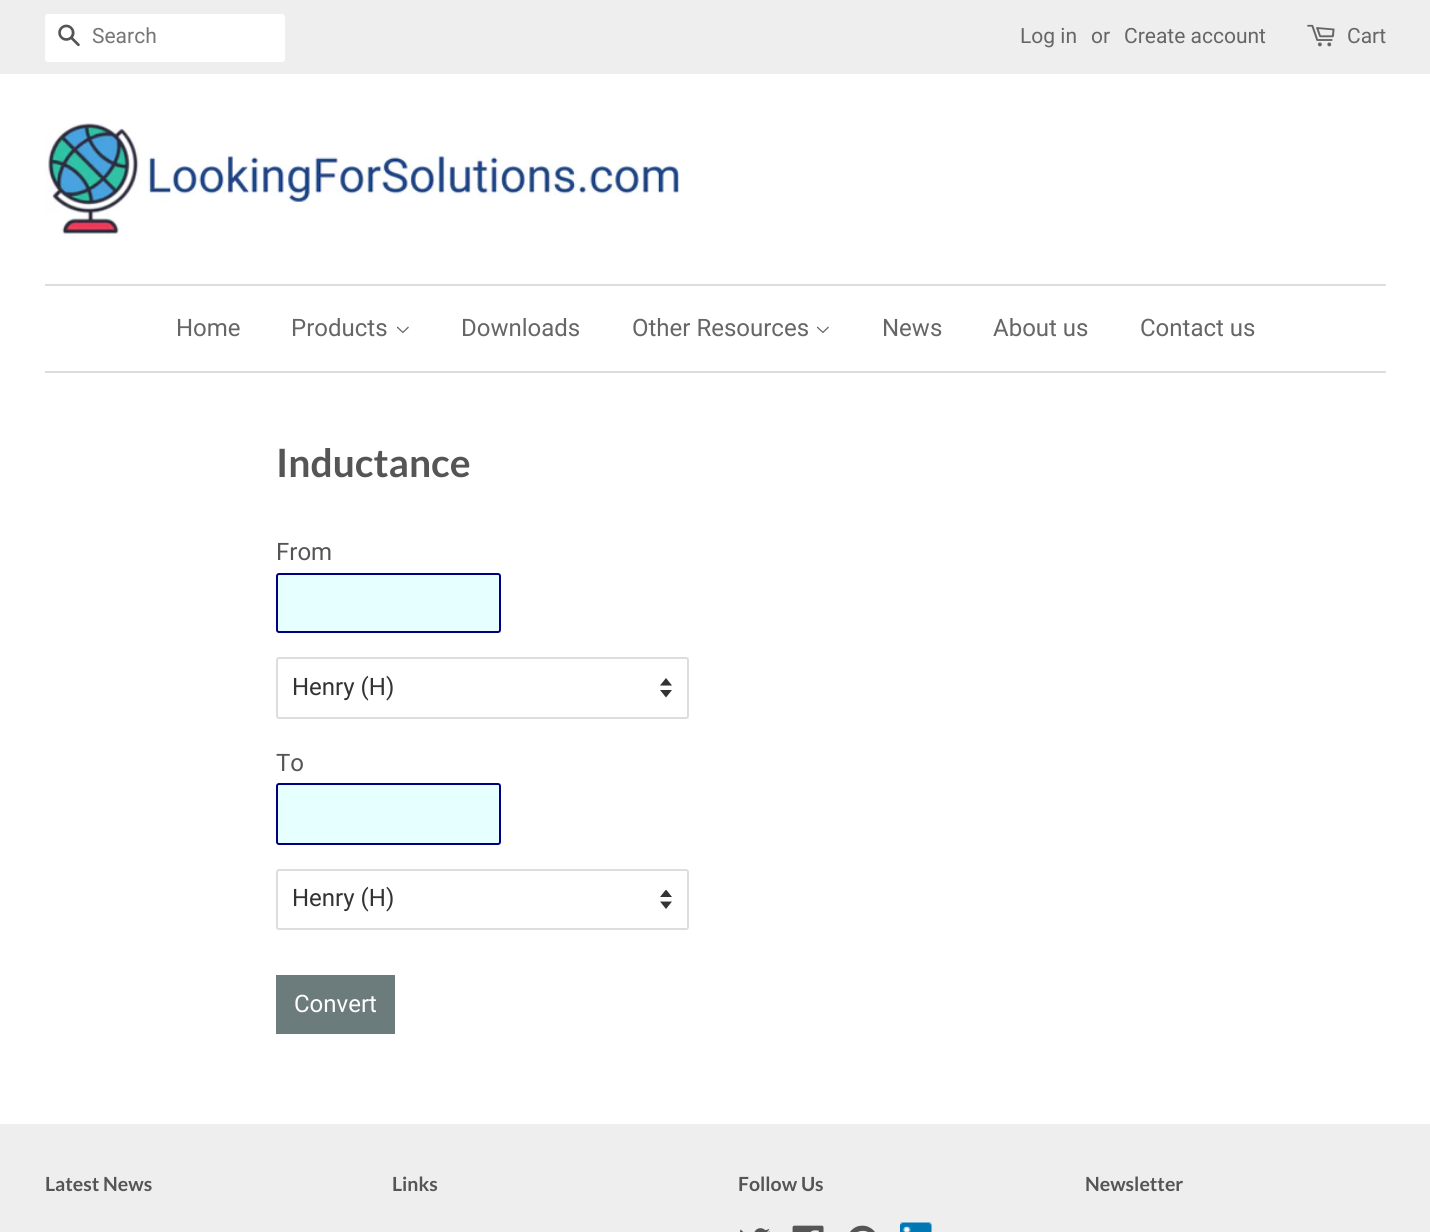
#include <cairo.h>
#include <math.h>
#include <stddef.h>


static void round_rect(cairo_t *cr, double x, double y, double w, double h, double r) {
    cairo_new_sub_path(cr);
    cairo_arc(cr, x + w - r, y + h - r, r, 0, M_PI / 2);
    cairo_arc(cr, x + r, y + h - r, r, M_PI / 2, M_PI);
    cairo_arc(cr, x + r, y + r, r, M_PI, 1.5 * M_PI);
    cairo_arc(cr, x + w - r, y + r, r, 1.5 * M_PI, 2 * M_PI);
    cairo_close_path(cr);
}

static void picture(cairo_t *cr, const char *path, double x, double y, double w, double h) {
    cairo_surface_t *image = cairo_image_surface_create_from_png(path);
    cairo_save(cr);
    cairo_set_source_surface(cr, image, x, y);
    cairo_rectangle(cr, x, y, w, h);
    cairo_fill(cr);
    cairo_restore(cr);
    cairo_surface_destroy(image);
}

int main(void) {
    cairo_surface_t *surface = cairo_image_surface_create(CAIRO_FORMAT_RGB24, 1430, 1232);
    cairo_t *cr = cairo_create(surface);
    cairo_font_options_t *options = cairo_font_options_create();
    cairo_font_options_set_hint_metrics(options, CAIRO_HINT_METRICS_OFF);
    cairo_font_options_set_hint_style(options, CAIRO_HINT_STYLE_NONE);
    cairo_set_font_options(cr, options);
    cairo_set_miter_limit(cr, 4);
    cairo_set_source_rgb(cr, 1, 1, 1);
    cairo_paint(cr);
    cairo_set_source_rgb(cr, 0.933, 0.933, 0.933);
    cairo_rectangle(cr, 0, 0, 1430, 74);
    cairo_fill(cr);
    cairo_set_source_rgb(cr, 1, 1, 1);
    round_rect(cr, 45, 14, 240, 48, 3);
    cairo_fill(cr);
    picture(cr, "img1.png", 58, 24, 22, 23);
    cairo_select_font_face(cr, "Roboto", CAIRO_FONT_SLANT_NORMAL, CAIRO_FONT_WEIGHT_NORMAL);
    cairo_set_font_size(cr, 21);
    cairo_set_source_rgb(cr, 0.459, 0.459, 0.459);
    cairo_move_to(cr, 92, 43);
    cairo_show_text(cr, "Search");
    cairo_set_source_rgb(cr, 0.4, 0.4, 0.4);
    cairo_move_to(cr, 1020, 43);
    cairo_show_text(cr, "Log in");
    cairo_move_to(cr, 1091, 43);
    cairo_show_text(cr, "or");
    cairo_move_to(cr, 1124, 43);
    cairo_show_text(cr, "Create account");
    picture(cr, "img2.png", 1307, 24, 28, 23);
    cairo_move_to(cr, 1347, 43);
    cairo_show_text(cr, "Cart");
    picture(cr, "img3.png", 45, 123, 635, 113);
    cairo_set_source_rgb(cr, 0.867, 0.867, 0.867);
    cairo_rectangle(cr, 45, 284, 1341, 2);
    cairo_fill(cr);
    cairo_rectangle(cr, 45, 371, 1341, 2);
    cairo_fill(cr);
    cairo_set_font_size(cr, 24);
    cairo_set_source_rgb(cr, 0.4, 0.4, 0.4);
    cairo_move_to(cr, 176, 336);
    cairo_show_text(cr, "Home");
    cairo_move_to(cr, 291, 336);
    cairo_show_text(cr, "Products");
    picture(cr, "img4.png", 396, 326, 13, 8);
    cairo_move_to(cr, 461, 336);
    cairo_show_text(cr, "Downloads");
    cairo_move_to(cr, 632, 336);
    cairo_show_text(cr, "Other Resources");
    picture(cr, "img4.png", 816, 326, 13, 8);
    cairo_move_to(cr, 882, 336);
    cairo_show_text(cr, "News");
    cairo_move_to(cr, 993, 336);
    cairo_show_text(cr, "About us");
    cairo_move_to(cr, 1140, 336);
    cairo_show_text(cr, "Contact us");
    cairo_select_font_face(cr, "Lato", CAIRO_FONT_SLANT_NORMAL, CAIRO_FONT_WEIGHT_BOLD);
    cairo_set_font_size(cr, 39);
    cairo_set_source_rgb(cr, 0.333, 0.333, 0.333);
    cairo_move_to(cr, 276, 477);
    cairo_show_text(cr, "Inductance");
    cairo_select_font_face(cr, "Roboto", CAIRO_FONT_SLANT_NORMAL, CAIRO_FONT_WEIGHT_NORMAL);
    cairo_set_font_size(cr, 24);
    cairo_move_to(cr, 276, 560);
    cairo_show_text(cr, "From");
    cairo_set_source_rgb(cr, 0.902, 1, 1);
    round_rect(cr, 277, 574, 223, 58, 2);
    cairo_fill_preserve(cr);
    cairo_set_source_rgb(cr, 0, 0, 0.502);
    cairo_stroke(cr);
    picture(cr, "img5.png", 660, 678, 12, 20);
    round_rect(cr, 277, 658, 411, 60, 2);
    cairo_set_source_rgb(cr, 0.867, 0.867, 0.867);
    cairo_stroke(cr);
    cairo_set_source_rgb(cr, 0.2, 0.2, 0.2);
    cairo_move_to(cr, 292, 695);
    cairo_show_text(cr, "Henry (H)");
    cairo_set_source_rgb(cr, 0.333, 0.333, 0.333);
    cairo_move_to(cr, 276, 771);
    cairo_show_text(cr, "To");
    cairo_set_source_rgb(cr, 0.902, 1, 1);
    round_rect(cr, 277, 784, 223, 60, 2);
    cairo_fill_preserve(cr);
    cairo_set_source_rgb(cr, 0, 0, 0.502);
    cairo_stroke(cr);
    picture(cr, "img6.png", 660, 890, 12, 19);
    round_rect(cr, 277, 870, 411, 59, 2);
    cairo_set_source_rgb(cr, 0.867, 0.867, 0.867);
    cairo_stroke(cr);
    cairo_set_source_rgb(cr, 0.2, 0.2, 0.2);
    cairo_move_to(cr, 292, 906);
    cairo_show_text(cr, "Henry (H)");
    cairo_set_source_rgb(cr, 0.424, 0.486, 0.486);
    cairo_rectangle(cr, 276, 975, 119, 59);
    cairo_fill(cr);
    cairo_set_source_rgb(cr, 1, 1, 1);
    cairo_move_to(cr, 294, 1012);
    cairo_show_text(cr, "Convert");
    cairo_set_source_rgb(cr, 0.933, 0.933, 0.933);
    cairo_rectangle(cr, 0, 1124, 1430, 108);
    cairo_fill(cr);
    cairo_select_font_face(cr, "Lato", CAIRO_FONT_SLANT_NORMAL, CAIRO_FONT_WEIGHT_BOLD);
    cairo_set_font_size(cr, 19.5);
    cairo_set_source_rgb(cr, 0.333, 0.333, 0.333);
    cairo_move_to(cr, 45, 1191);
    cairo_show_text(cr, "Latest News");
    cairo_move_to(cr, 392, 1191);
    cairo_show_text(cr, "Links");
    cairo_move_to(cr, 738, 1191);
    cairo_show_text(cr, "Follow Us");
    picture(cr, "img7.png", 740, 1228, 30, 4);
    picture(cr, "img8.png", 792, 1225, 32, 7);
    picture(cr, "img9.png", 850, 1225, 25, 7);
    picture(cr, "img10.png", 900, 1222, 32, 10);
    cairo_move_to(cr, 1085, 1191);
    cairo_show_text(cr, "Newsletter");
    cairo_surface_write_to_png(surface, "page.png");
    cairo_font_options_destroy(options);
    cairo_destroy(cr);
    cairo_surface_destroy(surface);
    return 0;
}
